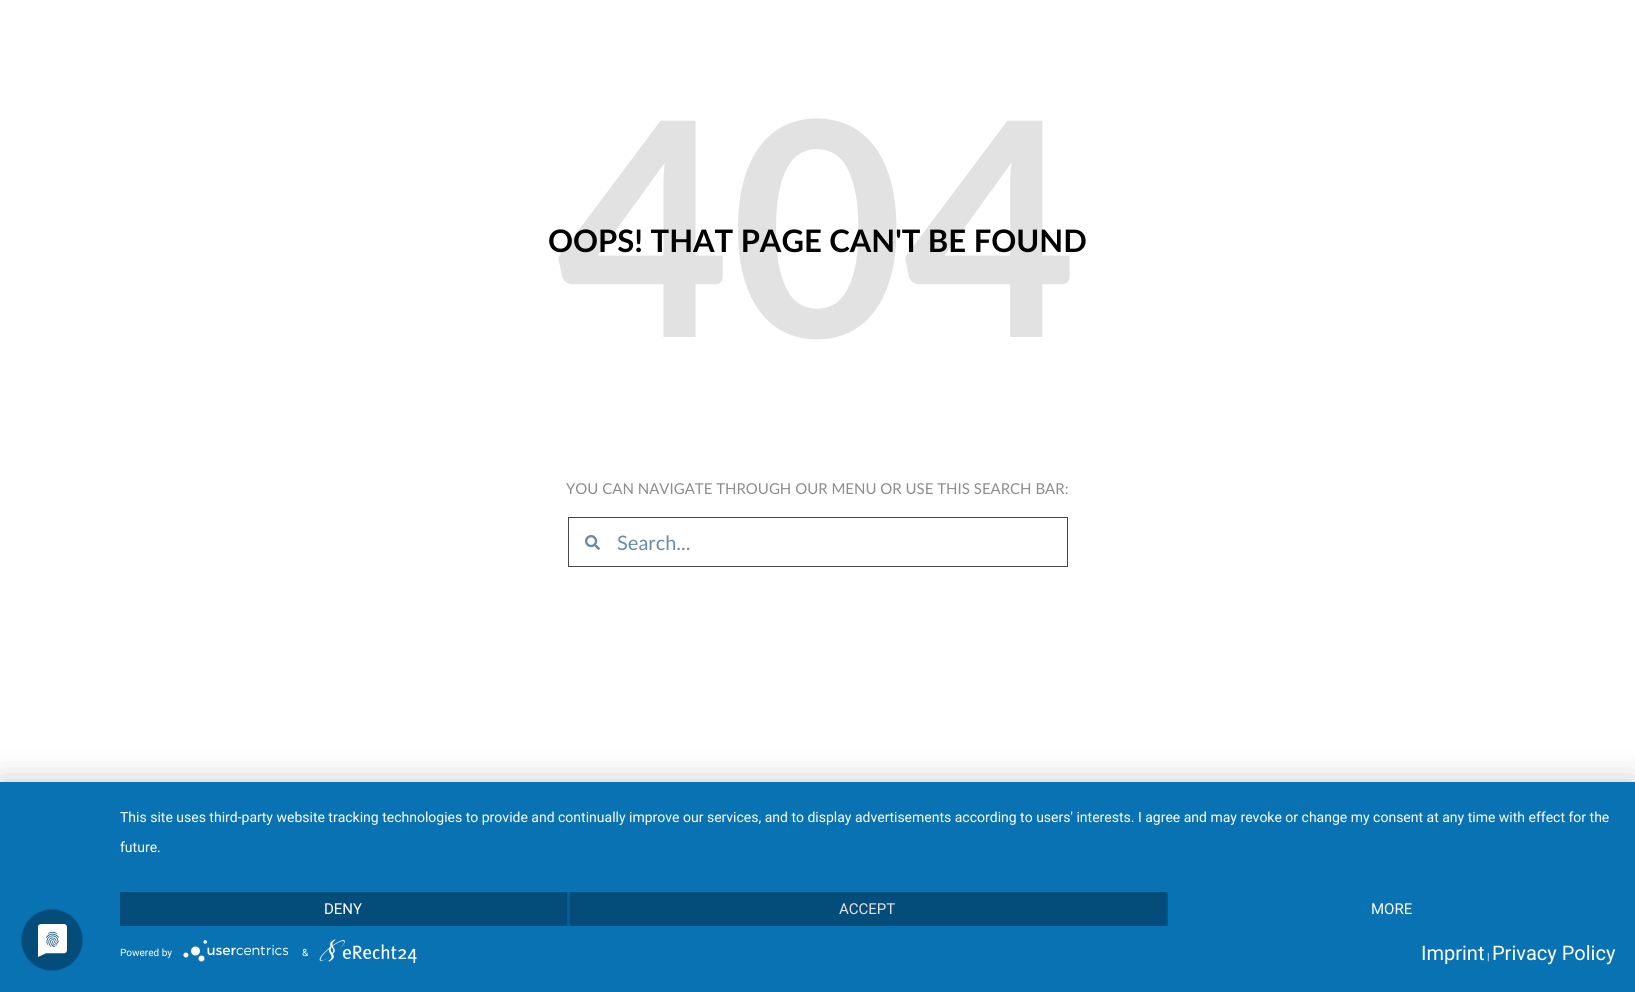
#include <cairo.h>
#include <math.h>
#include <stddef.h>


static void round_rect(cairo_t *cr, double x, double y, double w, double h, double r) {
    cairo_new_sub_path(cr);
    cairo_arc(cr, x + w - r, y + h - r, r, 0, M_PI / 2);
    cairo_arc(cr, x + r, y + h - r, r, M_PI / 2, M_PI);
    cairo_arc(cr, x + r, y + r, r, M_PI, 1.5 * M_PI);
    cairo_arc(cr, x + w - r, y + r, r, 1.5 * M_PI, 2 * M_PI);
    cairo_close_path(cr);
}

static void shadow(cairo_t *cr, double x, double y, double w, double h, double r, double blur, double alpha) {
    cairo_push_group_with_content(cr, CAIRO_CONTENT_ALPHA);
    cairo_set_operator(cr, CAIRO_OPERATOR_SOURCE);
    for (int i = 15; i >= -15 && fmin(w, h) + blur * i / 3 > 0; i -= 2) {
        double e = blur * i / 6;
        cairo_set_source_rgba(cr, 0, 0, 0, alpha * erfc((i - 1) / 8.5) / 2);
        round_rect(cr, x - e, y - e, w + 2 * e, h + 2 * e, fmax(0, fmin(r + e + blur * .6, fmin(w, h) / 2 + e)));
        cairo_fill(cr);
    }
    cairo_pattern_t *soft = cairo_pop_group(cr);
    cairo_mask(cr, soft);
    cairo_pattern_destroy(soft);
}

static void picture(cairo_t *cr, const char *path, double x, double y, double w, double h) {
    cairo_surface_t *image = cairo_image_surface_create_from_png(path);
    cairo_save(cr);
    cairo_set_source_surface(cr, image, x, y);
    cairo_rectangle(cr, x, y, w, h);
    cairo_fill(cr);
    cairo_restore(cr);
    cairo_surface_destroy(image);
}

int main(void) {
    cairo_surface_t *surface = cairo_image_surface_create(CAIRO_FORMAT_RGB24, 1635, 992);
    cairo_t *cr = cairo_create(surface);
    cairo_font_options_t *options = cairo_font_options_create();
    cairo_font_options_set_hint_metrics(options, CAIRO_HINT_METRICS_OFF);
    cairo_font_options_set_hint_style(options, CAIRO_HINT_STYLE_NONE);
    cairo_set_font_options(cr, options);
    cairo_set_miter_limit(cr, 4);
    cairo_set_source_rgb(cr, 1, 1, 1);
    cairo_paint(cr);
    cairo_select_font_face(cr, "Lato", CAIRO_FONT_SLANT_NORMAL, CAIRO_FONT_WEIGHT_BOLD);
    cairo_set_font_size(cr, 299);
    cairo_set_source_rgb(cr, 0.886, 0.886, 0.886);
    cairo_move_to(cr, 557, 337);
    cairo_show_text(cr, "404");
    cairo_set_font_size(cr, 31);
    cairo_set_source_rgb(cr, 0, 0, 0);
    cairo_move_to(cr, 548, 252);
    cairo_show_text(cr, "OOPS! THAT PAGE CAN'T BE FOUND");
    cairo_select_font_face(cr, "Lato", CAIRO_FONT_SLANT_NORMAL, CAIRO_FONT_WEIGHT_NORMAL);
    cairo_set_font_size(cr, 15);
    cairo_set_source_rgb(cr, 0.549, 0.549, 0.549);
    cairo_move_to(cr, 566, 494);
    cairo_show_text(cr, "YOU CAN NAVIGATE THROUGH OUR MENU OR USE THIS SEARCH BAR:");
    cairo_rectangle(cr, 568.5, 517.5, 499, 49);
    cairo_set_source_rgb(cr, 0.278, 0.278, 0.278);
    cairo_set_line_width(cr, 1);
    cairo_stroke(cr);
    picture(cr, "img1.png", 585, 535, 15, 15);
    cairo_set_font_size(cr, 20);
    cairo_set_source_rgb(cr, 0.4, 0.549, 0.663);
    cairo_move_to(cr, 617, 550);
    cairo_show_text(cr, "Search...");
    cairo_set_source_rgb(cr, 0, 0, 0);
    shadow(cr, 0, 788, 1635, 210, 0, 18, 0.3);
    cairo_set_source_rgb(cr, 0.035, 0.447, 0.702);
    cairo_rectangle(cr, 0, 782, 1635, 210);
    cairo_fill(cr);
    picture(cr, "img2.png", 20, 908, 64, 64);
    cairo_select_font_face(cr, "Roboto", CAIRO_FONT_SLANT_NORMAL, CAIRO_FONT_WEIGHT_NORMAL);
    cairo_set_font_size(cr, 14);
    cairo_set_source_rgb(cr, 1, 1, 1);
    cairo_move_to(cr, 120, 822);
    cairo_show_text(cr, "This site uses third-party website tracking technologies to provide and continually improve our services, and to display advertisements according to users' interests. I agree and may revoke or change my consent at any time with effect for the");
    cairo_move_to(cr, 120, 852);
    cairo_show_text(cr, "future.");
    cairo_save(cr);
    cairo_rectangle(cr, 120, 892, 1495, 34);
    cairo_clip(cr);
    cairo_set_source_rgb(cr, 0, 0, 0);
    shadow(cr, 120, 893, 447, 34, 0, 2, 0.4);
    cairo_restore(cr);
    cairo_set_source_rgb(cr, 0.016, 0.302, 0.478);
    cairo_rectangle(cr, 120, 892, 447, 34);
    cairo_fill(cr);
    cairo_set_font_size(cr, 15);
    cairo_set_source_rgb(cr, 1, 1, 1);
    cairo_move_to(cr, 324, 914);
    cairo_show_text(cr, "DENY");
    cairo_save(cr);
    cairo_rectangle(cr, 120, 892, 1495, 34);
    cairo_clip(cr);
    cairo_set_source_rgb(cr, 0, 0, 0);
    shadow(cr, 570, 893, 596, 34, 0, 2, 0.4);
    cairo_restore(cr);
    cairo_set_source_rgb(cr, 0.016, 0.302, 0.478);
    cairo_rectangle(cr, 570, 892, 596, 34);
    cairo_fill(cr);
    cairo_set_source_rgb(cr, 0.886, 0.886, 0.886);
    cairo_move_to(cr, 839, 914);
    cairo_show_text(cr, "ACCEPT");
    cairo_save(cr);
    cairo_rectangle(cr, 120, 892, 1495, 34);
    cairo_clip(cr);
    cairo_set_source_rgb(cr, 0, 0, 0);
    shadow(cr, 1168, 893, 447, 34, 0, 2, 0.4);
    cairo_restore(cr);
    cairo_set_source_rgb(cr, 0.035, 0.447, 0.702);
    cairo_rectangle(cr, 1168, 892, 447, 34);
    cairo_fill(cr);
    cairo_set_source_rgb(cr, 1, 1, 1);
    cairo_move_to(cr, 1371, 914);
    cairo_show_text(cr, "MORE");
    cairo_set_font_size(cr, 10);
    cairo_move_to(cr, 120, 956);
    cairo_show_text(cr, "Powered by");
    picture(cr, "img3.png", 183, 940, 106, 22);
    cairo_move_to(cr, 302, 956);
    cairo_show_text(cr, "&");
    picture(cr, "img4.png", 319, 939, 98, 24);
    cairo_set_font_size(cr, 20);
    cairo_move_to(cr, 1421, 960);
    cairo_show_text(cr, "Imprint");
    cairo_set_font_size(cr, 10);
    cairo_move_to(cr, 1487, 960);
    cairo_show_text(cr, "|");
    cairo_set_font_size(cr, 20);
    cairo_move_to(cr, 1492, 960);
    cairo_show_text(cr, "Privacy Policy");
    cairo_surface_write_to_png(surface, "page.png");
    cairo_font_options_destroy(options);
    cairo_destroy(cr);
    cairo_surface_destroy(surface);
    return 0;
}
